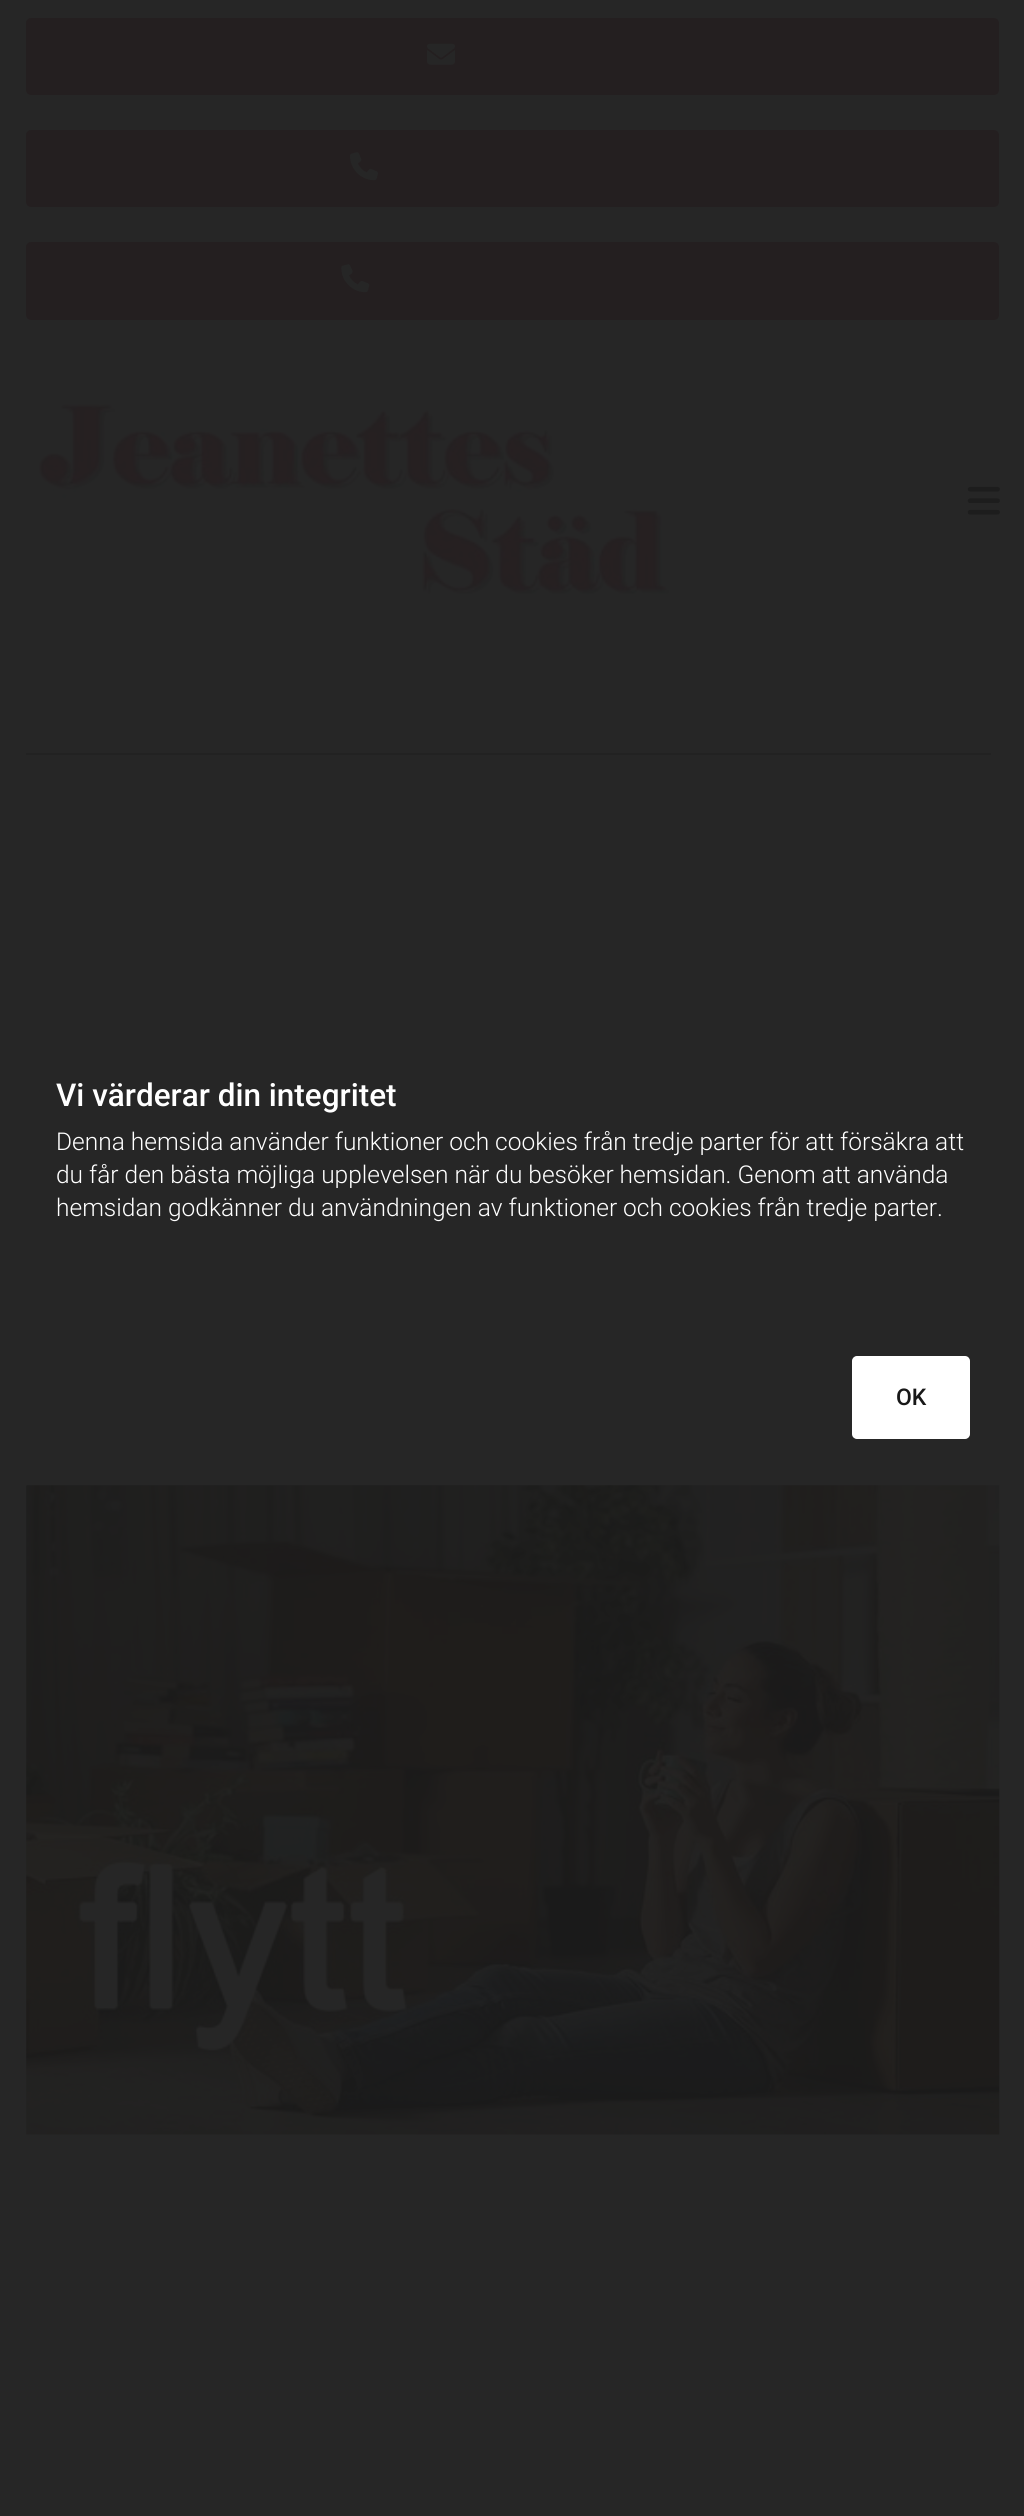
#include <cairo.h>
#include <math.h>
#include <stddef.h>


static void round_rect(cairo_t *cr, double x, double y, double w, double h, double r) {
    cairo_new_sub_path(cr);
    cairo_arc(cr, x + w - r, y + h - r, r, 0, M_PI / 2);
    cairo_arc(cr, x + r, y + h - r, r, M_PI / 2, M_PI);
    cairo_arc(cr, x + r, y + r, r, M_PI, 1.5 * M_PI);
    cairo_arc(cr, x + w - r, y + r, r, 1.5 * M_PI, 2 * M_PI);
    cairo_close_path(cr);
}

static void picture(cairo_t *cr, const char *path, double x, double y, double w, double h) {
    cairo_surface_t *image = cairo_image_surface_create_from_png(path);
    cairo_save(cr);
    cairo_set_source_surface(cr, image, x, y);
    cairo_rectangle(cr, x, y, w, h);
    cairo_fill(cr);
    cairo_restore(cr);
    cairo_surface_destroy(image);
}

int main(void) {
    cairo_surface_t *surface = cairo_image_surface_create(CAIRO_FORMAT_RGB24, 1024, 2516);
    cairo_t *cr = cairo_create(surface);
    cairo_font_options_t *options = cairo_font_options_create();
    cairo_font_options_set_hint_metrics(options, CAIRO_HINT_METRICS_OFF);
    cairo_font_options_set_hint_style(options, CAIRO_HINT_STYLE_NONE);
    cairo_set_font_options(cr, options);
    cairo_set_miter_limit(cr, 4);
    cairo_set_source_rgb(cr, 0.149, 0.149, 0.149);
    cairo_paint(cr);
    cairo_set_source_rgb(cr, 0.141, 0.122, 0.125);
    round_rect(cr, 26, 18, 973, 77, 5);
    cairo_fill(cr);
    picture(cr, "img1.png", 427, 43, 28, 22);
    round_rect(cr, 26, 130, 973, 77, 5);
    cairo_fill(cr);
    picture(cr, "img2.png", 350, 152, 28, 29);
    round_rect(cr, 26, 242, 973, 78, 5);
    cairo_fill(cr);
    picture(cr, "img3.png", 341, 264, 29, 29);
    picture(cr, "img4.png", 17, 381, 664, 235);
    picture(cr, "img5.png", 967, 486, 33, 29);
    cairo_set_source_rgb(cr, 0.133, 0.133, 0.133);
    cairo_rectangle(cr, 26, 753, 965, 2);
    cairo_fill(cr);
    picture(cr, "img6.png", 26, 1485, 974, 650);
    cairo_select_font_face(cr, "Roboto Medium", CAIRO_FONT_SLANT_NORMAL, CAIRO_FONT_WEIGHT_NORMAL);
    cairo_set_font_size(cr, 31.5);
    cairo_set_source_rgb(cr, 1, 1, 1);
    cairo_move_to(cr, 56, 1106);
    cairo_show_text(cr, "Vi värderar din integritet");
    cairo_select_font_face(cr, "Roboto Light", CAIRO_FONT_SLANT_NORMAL, CAIRO_FONT_WEIGHT_NORMAL);
    cairo_set_font_size(cr, 24.5);
    cairo_move_to(cr, 56, 1150);
    cairo_show_text(cr, "Denna hemsida använder funktioner och cookies från tredje parter för att försäkra att");
    cairo_move_to(cr, 56, 1183);
    cairo_show_text(cr, "du får den bästa möjliga upplevelsen när du besöker hemsidan. Genom att använda");
    cairo_move_to(cr, 56, 1216);
    cairo_show_text(cr, "hemsidan godkänner du användningen av funktioner och cookies från tredje parter.");
    round_rect(cr, 853, 1357, 116, 81, 4);
    cairo_fill_preserve(cr);
    cairo_stroke(cr);
    cairo_select_font_face(cr, "Roboto Medium", CAIRO_FONT_SLANT_NORMAL, CAIRO_FONT_WEIGHT_NORMAL);
    cairo_set_font_size(cr, 23);
    cairo_set_source_rgb(cr, 0.094, 0.094, 0.094);
    cairo_move_to(cr, 896, 1405);
    cairo_show_text(cr, "OK");
    cairo_surface_write_to_png(surface, "page.png");
    cairo_font_options_destroy(options);
    cairo_destroy(cr);
    cairo_surface_destroy(surface);
    return 0;
}
